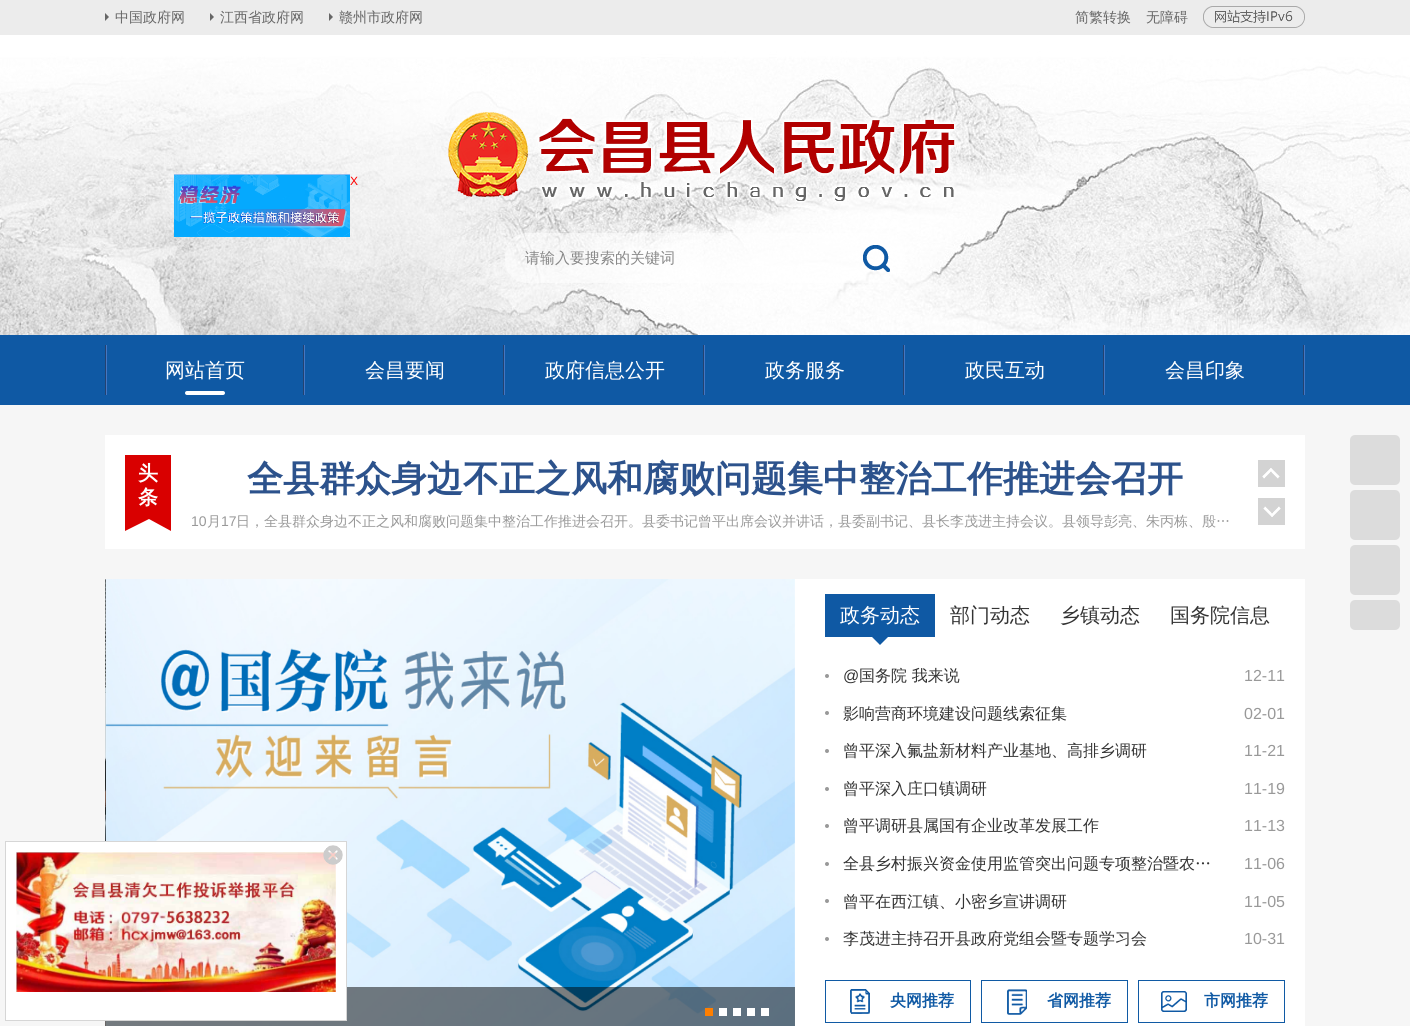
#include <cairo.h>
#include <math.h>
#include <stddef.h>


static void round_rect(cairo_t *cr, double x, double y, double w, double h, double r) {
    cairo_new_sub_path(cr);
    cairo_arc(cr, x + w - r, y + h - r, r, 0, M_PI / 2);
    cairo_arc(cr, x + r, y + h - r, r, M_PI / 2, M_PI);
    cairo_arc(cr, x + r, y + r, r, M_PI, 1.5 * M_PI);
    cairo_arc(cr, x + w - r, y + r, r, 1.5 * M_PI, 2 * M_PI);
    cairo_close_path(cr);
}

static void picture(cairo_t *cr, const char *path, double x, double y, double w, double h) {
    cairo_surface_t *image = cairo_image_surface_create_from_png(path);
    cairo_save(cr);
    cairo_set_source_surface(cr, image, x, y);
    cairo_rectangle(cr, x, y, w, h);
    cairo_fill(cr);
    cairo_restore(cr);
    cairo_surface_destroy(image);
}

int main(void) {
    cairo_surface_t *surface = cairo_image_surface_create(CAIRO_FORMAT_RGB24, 1410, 1026);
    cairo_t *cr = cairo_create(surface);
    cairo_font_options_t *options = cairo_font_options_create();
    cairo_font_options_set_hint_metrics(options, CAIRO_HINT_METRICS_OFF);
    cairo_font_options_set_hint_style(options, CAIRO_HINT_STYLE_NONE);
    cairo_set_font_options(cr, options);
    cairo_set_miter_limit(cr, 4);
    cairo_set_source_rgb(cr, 0.961, 0.961, 0.961);
    cairo_paint(cr);
    cairo_set_source_rgb(cr, 0.922, 0.922, 0.922);
    cairo_rectangle(cr, 0, 0, 1410, 35);
    cairo_fill(cr);
    cairo_set_source_rgb(cr, 0.4, 0.4, 0.4);
    cairo_new_path(cr);
    cairo_move_to(cr, 105, 21);
    cairo_line_to(cr, 105, 13);
    cairo_line_to(cr, 109, 17);
    cairo_close_path(cr);
    cairo_fill(cr);
    cairo_select_font_face(cr, "WenQuanYi Zen Hei Medium", CAIRO_FONT_SLANT_NORMAL, CAIRO_FONT_WEIGHT_NORMAL);
    cairo_set_font_size(cr, 14);
    cairo_move_to(cr, 115, 22);
    cairo_show_text(cr, "中国政府网");
    cairo_new_path(cr);
    cairo_move_to(cr, 210, 21);
    cairo_line_to(cr, 210, 13);
    cairo_line_to(cr, 214, 17);
    cairo_close_path(cr);
    cairo_fill(cr);
    cairo_move_to(cr, 220, 22);
    cairo_show_text(cr, "江西省政府网");
    cairo_new_path(cr);
    cairo_move_to(cr, 329, 21);
    cairo_line_to(cr, 329, 13);
    cairo_line_to(cr, 333, 17);
    cairo_close_path(cr);
    cairo_fill(cr);
    cairo_move_to(cr, 339, 22);
    cairo_show_text(cr, "赣州市政府网");
    cairo_move_to(cr, 1075, 22);
    cairo_show_text(cr, "简繁转换");
    cairo_move_to(cr, 1146, 22);
    cairo_show_text(cr, "无障碍");
    picture(cr, "img1.png", 1203, 6, 102, 22);
    picture(cr, "img2.png", 0, 35, 1410, 300);
    picture(cr, "img3.png", 448, 112, 510, 92);
    cairo_set_source_rgba(cr, 1, 1, 1, 0.5);
    round_rect(cr, 505, 233, 400, 50, 22);
    cairo_fill(cr);
    cairo_set_font_size(cr, 15);
    cairo_set_source_rgb(cr, 0.529, 0.529, 0.529);
    cairo_move_to(cr, 525, 263);
    cairo_show_text(cr, "请输入要搜索的关键词");
    picture(cr, "img4.png", 863, 245, 27, 27);
    cairo_set_source_rgb(cr, 0.059, 0.349, 0.643);
    cairo_rectangle(cr, 0, 335, 1410, 70);
    cairo_fill(cr);
    picture(cr, "img5.png", 105, 345, 2, 50);
    cairo_set_font_size(cr, 20);
    cairo_set_source_rgb(cr, 1, 1, 1);
    cairo_move_to(cr, 165, 377);
    cairo_show_text(cr, "网站首页");
    round_rect(cr, 185, 391, 40, 4, 2);
    cairo_fill(cr);
    picture(cr, "img5.png", 303, 345, 2, 50);
    cairo_move_to(cr, 365, 377);
    cairo_show_text(cr, "会昌要闻");
    picture(cr, "img5.png", 503, 345, 2, 50);
    cairo_move_to(cr, 545, 377);
    cairo_show_text(cr, "政府信息公开");
    picture(cr, "img5.png", 703, 345, 2, 50);
    cairo_move_to(cr, 765, 377);
    cairo_show_text(cr, "政务服务");
    picture(cr, "img5.png", 903, 345, 2, 50);
    cairo_move_to(cr, 965, 377);
    cairo_show_text(cr, "政民互动");
    picture(cr, "img5.png", 1103, 345, 2, 50);
    cairo_move_to(cr, 1165, 377);
    cairo_show_text(cr, "会昌印象");
    picture(cr, "img5.png", 1303, 345, 2, 50);
    picture(cr, "img6.png", 174, 174, 176, 63);
    cairo_select_font_face(cr, "Liberation Sans", CAIRO_FONT_SLANT_NORMAL, CAIRO_FONT_WEIGHT_NORMAL);
    cairo_set_font_size(cr, 12);
    cairo_set_source_rgb(cr, 1, 0, 0);
    cairo_move_to(cr, 350, 185);
    cairo_show_text(cr, "X");
    cairo_set_source_rgb(cr, 1, 1, 1);
    cairo_rectangle(cr, 105, 435, 1200, 114);
    cairo_fill(cr);
    picture(cr, "img7.png", 125, 455, 46, 76);
    cairo_select_font_face(cr, "WenQuanYi Zen Hei", CAIRO_FONT_SLANT_NORMAL, CAIRO_FONT_WEIGHT_BOLD);
    cairo_set_font_size(cr, 20);
    cairo_move_to(cr, 138, 480);
    cairo_show_text(cr, "头");
    cairo_move_to(cr, 138, 504);
    cairo_show_text(cr, "条");
    cairo_set_font_size(cr, 36);
    cairo_set_source_rgb(cr, 0.173, 0.322, 0.549);
    cairo_move_to(cr, 247, 491);
    cairo_show_text(cr, "全县群众身边不正之风和腐败问题集中整治工作推进会召开");
    cairo_select_font_face(cr, "Liberation Sans", CAIRO_FONT_SLANT_NORMAL, CAIRO_FONT_WEIGHT_NORMAL);
    cairo_set_font_size(cr, 14);
    cairo_set_source_rgb(cr, 0.6, 0.6, 0.6);
    cairo_move_to(cr, 191, 526);
    cairo_show_text(cr, "10");
    cairo_select_font_face(cr, "WenQuanYi Zen Hei Medium", CAIRO_FONT_SLANT_NORMAL, CAIRO_FONT_WEIGHT_NORMAL);
    cairo_move_to(cr, 207, 526);
    cairo_show_text(cr, "月");
    cairo_select_font_face(cr, "Liberation Sans", CAIRO_FONT_SLANT_NORMAL, CAIRO_FONT_WEIGHT_NORMAL);
    cairo_move_to(cr, 221, 526);
    cairo_show_text(cr, "17");
    cairo_select_font_face(cr, "WenQuanYi Zen Hei Medium", CAIRO_FONT_SLANT_NORMAL, CAIRO_FONT_WEIGHT_NORMAL);
    cairo_move_to(cr, 236, 526);
    cairo_show_text(cr, "日，全县群众身边不正之风和腐败问题集中整治工作推进会召开。县委书记曾平出席会议并讲话，县委副书记、县长李茂进主持会议。县领导彭亮、朱丙栋、殷…");
    picture(cr, "img8.png", 1258, 460, 27, 27);
    picture(cr, "img9.png", 1258, 498, 27, 27);
    cairo_set_source_rgb(cr, 1, 1, 1);
    cairo_rectangle(cr, 106, 579, 1199, 447);
    cairo_fill(cr);
    picture(cr, "img10.png", 105, 579, 1, 447);
    cairo_set_source_rgba(cr, 0, 0, 0, 0.5);
    cairo_rectangle(cr, 105, 1021, 1, 5);
    cairo_fill(cr);
    picture(cr, "img11.png", 105, 579, 690, 447);
    cairo_rectangle(cr, 106, 987, 689, 39);
    cairo_fill(cr);
    cairo_set_source_rgb(cr, 1, 0.498, 0);
    cairo_rectangle(cr, 705, 1008, 8, 8);
    cairo_fill(cr);
    cairo_set_source_rgb(cr, 1, 1, 1);
    cairo_rectangle(cr, 719, 1008, 8, 8);
    cairo_fill(cr);
    cairo_rectangle(cr, 733, 1008, 8, 8);
    cairo_fill(cr);
    cairo_rectangle(cr, 747, 1008, 8, 8);
    cairo_fill(cr);
    cairo_rectangle(cr, 761, 1008, 8, 8);
    cairo_fill(cr);
    cairo_set_source_rgb(cr, 0.059, 0.349, 0.643);
    cairo_rectangle(cr, 825, 594, 110, 43);
    cairo_fill(cr);
    cairo_set_font_size(cr, 20);
    cairo_set_source_rgb(cr, 1, 1, 1);
    cairo_move_to(cr, 840, 622);
    cairo_show_text(cr, "政务动态");
    cairo_set_source_rgb(cr, 0.059, 0.349, 0.643);
    cairo_new_path(cr);
    cairo_move_to(cr, 872, 637);
    cairo_line_to(cr, 888, 637);
    cairo_line_to(cr, 880, 645);
    cairo_close_path(cr);
    cairo_fill(cr);
    cairo_set_source_rgb(cr, 0.2, 0.2, 0.2);
    cairo_move_to(cr, 950, 622);
    cairo_show_text(cr, "部门动态");
    cairo_move_to(cr, 1060, 622);
    cairo_show_text(cr, "乡镇动态");
    cairo_move_to(cr, 1170, 622);
    cairo_show_text(cr, "国务院信息");
    cairo_set_source_rgb(cr, 0.6, 0.6, 0.6);
    cairo_new_path(cr);
    cairo_arc(cr, 827, 676, 2, 0, 2 * M_PI);
    cairo_fill(cr);
    cairo_select_font_face(cr, "Liberation Sans", CAIRO_FONT_SLANT_NORMAL, CAIRO_FONT_WEIGHT_NORMAL);
    cairo_set_font_size(cr, 16);
    cairo_set_source_rgb(cr, 0.2, 0.2, 0.2);
    cairo_move_to(cr, 843, 681);
    cairo_show_text(cr, "@");
    cairo_select_font_face(cr, "WenQuanYi Zen Hei Medium", CAIRO_FONT_SLANT_NORMAL, CAIRO_FONT_WEIGHT_NORMAL);
    cairo_move_to(cr, 859, 681);
    cairo_show_text(cr, "国务院 我来说");
    cairo_select_font_face(cr, "Liberation Sans", CAIRO_FONT_SLANT_NORMAL, CAIRO_FONT_WEIGHT_NORMAL);
    cairo_set_source_rgb(cr, 0.6, 0.6, 0.6);
    cairo_move_to(cr, 1244, 681);
    cairo_show_text(cr, "12-11");
    cairo_new_path(cr);
    cairo_arc(cr, 827, 713, 2, 0, 2 * M_PI);
    cairo_fill(cr);
    cairo_select_font_face(cr, "WenQuanYi Zen Hei Medium", CAIRO_FONT_SLANT_NORMAL, CAIRO_FONT_WEIGHT_NORMAL);
    cairo_set_source_rgb(cr, 0.2, 0.2, 0.2);
    cairo_move_to(cr, 843, 719);
    cairo_show_text(cr, "影响营商环境建设问题线索征集");
    cairo_select_font_face(cr, "Liberation Sans", CAIRO_FONT_SLANT_NORMAL, CAIRO_FONT_WEIGHT_NORMAL);
    cairo_set_source_rgb(cr, 0.6, 0.6, 0.6);
    cairo_move_to(cr, 1244, 719);
    cairo_show_text(cr, "02-01");
    cairo_new_path(cr);
    cairo_arc(cr, 827, 751, 2, 0, 2 * M_PI);
    cairo_fill(cr);
    cairo_select_font_face(cr, "WenQuanYi Zen Hei Medium", CAIRO_FONT_SLANT_NORMAL, CAIRO_FONT_WEIGHT_NORMAL);
    cairo_set_source_rgb(cr, 0.2, 0.2, 0.2);
    cairo_move_to(cr, 843, 756);
    cairo_show_text(cr, "曾平深入氟盐新材料产业基地、高排乡调研");
    cairo_select_font_face(cr, "Liberation Sans", CAIRO_FONT_SLANT_NORMAL, CAIRO_FONT_WEIGHT_NORMAL);
    cairo_set_source_rgb(cr, 0.6, 0.6, 0.6);
    cairo_move_to(cr, 1244, 756);
    cairo_show_text(cr, "11-21");
    cairo_new_path(cr);
    cairo_arc(cr, 827, 789, 2, 0, 2 * M_PI);
    cairo_fill(cr);
    cairo_select_font_face(cr, "WenQuanYi Zen Hei Medium", CAIRO_FONT_SLANT_NORMAL, CAIRO_FONT_WEIGHT_NORMAL);
    cairo_set_source_rgb(cr, 0.2, 0.2, 0.2);
    cairo_move_to(cr, 843, 794);
    cairo_show_text(cr, "曾平深入庄口镇调研");
    cairo_select_font_face(cr, "Liberation Sans", CAIRO_FONT_SLANT_NORMAL, CAIRO_FONT_WEIGHT_NORMAL);
    cairo_set_source_rgb(cr, 0.6, 0.6, 0.6);
    cairo_move_to(cr, 1244, 794);
    cairo_show_text(cr, "11-19");
    cairo_new_path(cr);
    cairo_arc(cr, 827, 826, 2, 0, 2 * M_PI);
    cairo_fill(cr);
    cairo_select_font_face(cr, "WenQuanYi Zen Hei Medium", CAIRO_FONT_SLANT_NORMAL, CAIRO_FONT_WEIGHT_NORMAL);
    cairo_set_source_rgb(cr, 0.2, 0.2, 0.2);
    cairo_move_to(cr, 843, 831);
    cairo_show_text(cr, "曾平调研县属国有企业改革发展工作");
    cairo_select_font_face(cr, "Liberation Sans", CAIRO_FONT_SLANT_NORMAL, CAIRO_FONT_WEIGHT_NORMAL);
    cairo_set_source_rgb(cr, 0.6, 0.6, 0.6);
    cairo_move_to(cr, 1244, 831);
    cairo_show_text(cr, "11-13");
    cairo_new_path(cr);
    cairo_arc(cr, 827, 864, 2, 0, 2 * M_PI);
    cairo_fill(cr);
    cairo_select_font_face(cr, "WenQuanYi Zen Hei Medium", CAIRO_FONT_SLANT_NORMAL, CAIRO_FONT_WEIGHT_NORMAL);
    cairo_set_source_rgb(cr, 0.2, 0.2, 0.2);
    cairo_move_to(cr, 843, 869);
    cairo_show_text(cr, "全县乡村振兴资金使用监管突出问题专项整治暨农…");
    cairo_select_font_face(cr, "Liberation Sans", CAIRO_FONT_SLANT_NORMAL, CAIRO_FONT_WEIGHT_NORMAL);
    cairo_set_source_rgb(cr, 0.6, 0.6, 0.6);
    cairo_move_to(cr, 1244, 869);
    cairo_show_text(cr, "11-06");
    cairo_new_path(cr);
    cairo_arc(cr, 827, 901, 2, 0, 2 * M_PI);
    cairo_fill(cr);
    cairo_select_font_face(cr, "WenQuanYi Zen Hei Medium", CAIRO_FONT_SLANT_NORMAL, CAIRO_FONT_WEIGHT_NORMAL);
    cairo_set_source_rgb(cr, 0.2, 0.2, 0.2);
    cairo_move_to(cr, 843, 907);
    cairo_show_text(cr, "曾平在西江镇、小密乡宣讲调研");
    cairo_select_font_face(cr, "Liberation Sans", CAIRO_FONT_SLANT_NORMAL, CAIRO_FONT_WEIGHT_NORMAL);
    cairo_set_source_rgb(cr, 0.6, 0.6, 0.6);
    cairo_move_to(cr, 1244, 907);
    cairo_show_text(cr, "11-05");
    cairo_new_path(cr);
    cairo_arc(cr, 827, 939, 2, 0, 2 * M_PI);
    cairo_fill(cr);
    cairo_select_font_face(cr, "WenQuanYi Zen Hei Medium", CAIRO_FONT_SLANT_NORMAL, CAIRO_FONT_WEIGHT_NORMAL);
    cairo_set_source_rgb(cr, 0.2, 0.2, 0.2);
    cairo_move_to(cr, 843, 944);
    cairo_show_text(cr, "李茂进主持召开县政府党组会暨专题学习会");
    cairo_select_font_face(cr, "Liberation Sans", CAIRO_FONT_SLANT_NORMAL, CAIRO_FONT_WEIGHT_NORMAL);
    cairo_set_source_rgb(cr, 0.6, 0.6, 0.6);
    cairo_move_to(cr, 1244, 944);
    cairo_show_text(cr, "10-31");
    cairo_rectangle(cr, 825.5, 980.5, 145, 42);
    cairo_set_source_rgb(cr, 0.063, 0.353, 0.643);
    cairo_set_line_width(cr, 1);
    cairo_stroke(cr);
    picture(cr, "img12.png", 850, 989, 20, 25);
    cairo_select_font_face(cr, "WenQuanYi Zen Hei", CAIRO_FONT_SLANT_NORMAL, CAIRO_FONT_WEIGHT_BOLD);
    cairo_set_source_rgb(cr, 0.059, 0.349, 0.643);
    cairo_move_to(cr, 890, 1006);
    cairo_show_text(cr, "央网推荐");
    cairo_rectangle(cr, 981.5, 980.5, 146, 42);
    cairo_set_source_rgb(cr, 0.063, 0.353, 0.643);
    cairo_stroke(cr);
    picture(cr, "img13.png", 1007, 989, 20, 26);
    cairo_set_source_rgb(cr, 0.059, 0.349, 0.643);
    cairo_move_to(cr, 1047, 1006);
    cairo_show_text(cr, "省网推荐");
    cairo_rectangle(cr, 1138.5, 980.5, 146, 42);
    cairo_set_source_rgb(cr, 0.063, 0.353, 0.643);
    cairo_stroke(cr);
    picture(cr, "img14.png", 1161, 991, 26, 21);
    cairo_set_source_rgb(cr, 0.059, 0.349, 0.643);
    cairo_move_to(cr, 1204, 1006);
    cairo_show_text(cr, "市网推荐");
    cairo_set_source_rgb(cr, 0.863, 0.863, 0.863);
    round_rect(cr, 1350, 435, 50, 50, 5);
    cairo_fill(cr);
    round_rect(cr, 1350, 490, 50, 50, 5);
    cairo_fill(cr);
    round_rect(cr, 1350, 545, 50, 50, 5);
    cairo_fill(cr);
    round_rect(cr, 1350, 600, 50, 30, 5);
    cairo_fill(cr);
    cairo_set_source_rgb(cr, 1, 1, 1);
    cairo_rectangle(cr, 5.5, 841.5, 341, 179);
    cairo_fill_preserve(cr);
    cairo_set_source_rgb(cr, 0.839, 0.839, 0.839);
    cairo_stroke(cr);
    picture(cr, "img16.png", 16, 852, 320, 140);
    picture(cr, "img15.png", 323, 845, 20, 20);
    cairo_surface_write_to_png(surface, "page.png");
    cairo_font_options_destroy(options);
    cairo_destroy(cr);
    cairo_surface_destroy(surface);
    return 0;
}
